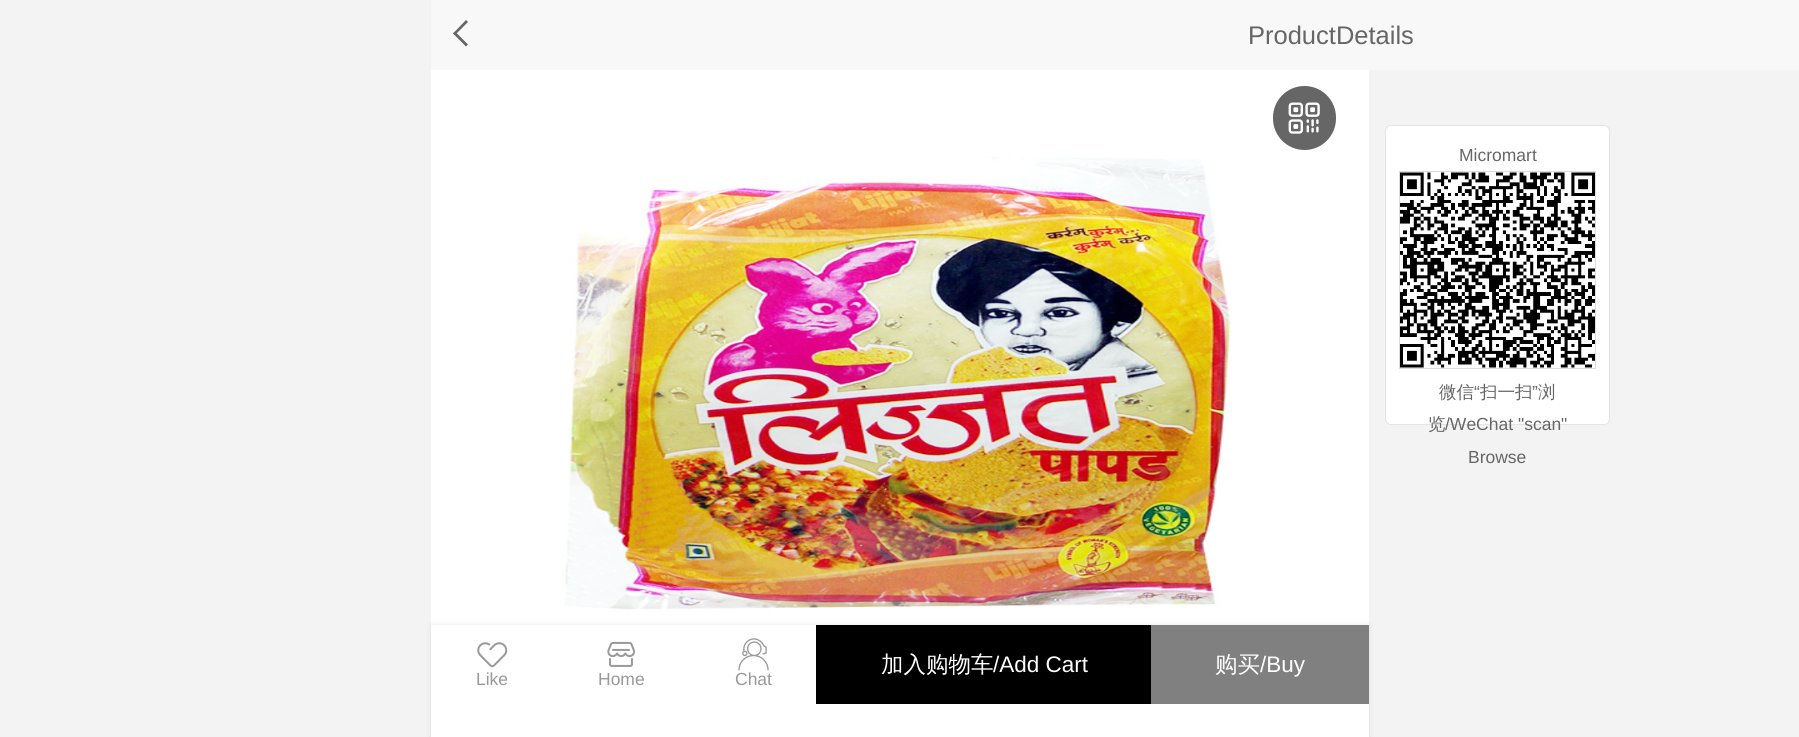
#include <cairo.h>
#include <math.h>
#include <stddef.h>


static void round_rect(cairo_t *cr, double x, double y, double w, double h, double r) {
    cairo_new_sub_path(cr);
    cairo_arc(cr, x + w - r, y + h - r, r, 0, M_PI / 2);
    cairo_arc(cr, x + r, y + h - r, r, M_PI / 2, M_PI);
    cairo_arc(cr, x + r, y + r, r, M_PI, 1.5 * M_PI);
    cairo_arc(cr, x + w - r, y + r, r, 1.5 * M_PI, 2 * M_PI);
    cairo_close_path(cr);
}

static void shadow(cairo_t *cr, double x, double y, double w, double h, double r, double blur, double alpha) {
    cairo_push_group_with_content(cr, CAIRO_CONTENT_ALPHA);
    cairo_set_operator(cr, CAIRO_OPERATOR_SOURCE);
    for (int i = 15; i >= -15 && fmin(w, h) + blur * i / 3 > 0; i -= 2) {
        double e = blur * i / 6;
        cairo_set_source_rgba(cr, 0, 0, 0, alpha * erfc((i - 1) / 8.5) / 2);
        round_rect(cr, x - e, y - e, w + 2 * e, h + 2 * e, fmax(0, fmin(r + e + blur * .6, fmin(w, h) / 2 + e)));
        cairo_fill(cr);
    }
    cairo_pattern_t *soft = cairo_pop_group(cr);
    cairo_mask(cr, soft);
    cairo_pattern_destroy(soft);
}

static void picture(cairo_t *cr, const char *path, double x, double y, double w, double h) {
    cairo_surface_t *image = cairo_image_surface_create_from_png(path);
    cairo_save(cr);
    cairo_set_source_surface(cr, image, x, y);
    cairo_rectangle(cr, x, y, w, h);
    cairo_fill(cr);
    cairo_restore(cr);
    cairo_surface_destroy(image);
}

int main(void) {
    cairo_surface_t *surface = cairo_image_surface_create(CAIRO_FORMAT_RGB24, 1799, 737);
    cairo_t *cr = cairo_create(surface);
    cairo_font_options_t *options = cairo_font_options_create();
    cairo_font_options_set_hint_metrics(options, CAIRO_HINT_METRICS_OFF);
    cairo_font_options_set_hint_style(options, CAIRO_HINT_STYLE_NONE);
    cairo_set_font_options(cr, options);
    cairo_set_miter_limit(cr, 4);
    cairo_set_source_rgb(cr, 0.953, 0.953, 0.953);
    cairo_paint(cr);
    cairo_set_source_rgb(cr, 0.969, 0.969, 0.969);
    cairo_rectangle(cr, 431, 0, 1368, 70);
    cairo_fill(cr);
    cairo_set_source_rgb(cr, 0.4, 0.4, 0.4);
    cairo_new_path(cr);
    cairo_move_to(cr, 455, 31.5);
    cairo_line_to(cr, 468, 44.5);
    cairo_line_to(cr, 466, 46.5);
    cairo_line_to(cr, 453, 33.5);
    cairo_close_path(cr);
    cairo_fill(cr);
    cairo_new_path(cr);
    cairo_move_to(cr, 466, 20);
    cairo_line_to(cr, 468, 22);
    cairo_line_to(cr, 455, 35);
    cairo_line_to(cr, 453, 33.5);
    cairo_close_path(cr);
    cairo_fill(cr);
    cairo_select_font_face(cr, "Liberation Sans", CAIRO_FONT_SLANT_NORMAL, CAIRO_FONT_WEIGHT_NORMAL);
    cairo_set_font_size(cr, 25.5);
    cairo_move_to(cr, 1248, 44);
    cairo_show_text(cr, "ProductDetails");
    picture(cr, "img1.png", 431, 70, 938, 555);
    round_rect(cr, 1273, 86, 63, 64, 31.5);
    cairo_fill(cr);
    picture(cr, "img2.png", 1288, 102, 32, 32);
    cairo_set_source_rgb(cr, 0, 0, 0);
    shadow(cr, 431, 625, 938, 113, 0, 2.5, 0.1);
    cairo_set_source_rgb(cr, 1, 1, 1);
    cairo_rectangle(cr, 431, 625, 938, 112);
    cairo_fill(cr);
    cairo_set_source_rgb(cr, 0, 0, 0);
    cairo_rectangle(cr, 816, 625, 335, 79);
    cairo_fill(cr);
    cairo_select_font_face(cr, "WenQuanYi Zen Hei Medium", CAIRO_FONT_SLANT_NORMAL, CAIRO_FONT_WEIGHT_NORMAL);
    cairo_set_font_size(cr, 22.5);
    cairo_set_source_rgb(cr, 1, 1, 1);
    cairo_move_to(cr, 881, 672);
    cairo_show_text(cr, "加入购物车");
    cairo_select_font_face(cr, "Liberation Sans", CAIRO_FONT_SLANT_NORMAL, CAIRO_FONT_WEIGHT_NORMAL);
    cairo_move_to(cr, 993, 672);
    cairo_show_text(cr, "/Add Cart");
    cairo_set_source_rgb(cr, 0.502, 0.502, 0.502);
    cairo_rectangle(cr, 1151, 625, 218, 79);
    cairo_fill(cr);
    cairo_select_font_face(cr, "WenQuanYi Zen Hei Medium", CAIRO_FONT_SLANT_NORMAL, CAIRO_FONT_WEIGHT_NORMAL);
    cairo_set_source_rgb(cr, 1, 1, 1);
    cairo_move_to(cr, 1215, 672);
    cairo_show_text(cr, "购买");
    cairo_select_font_face(cr, "Liberation Sans", CAIRO_FONT_SLANT_NORMAL, CAIRO_FONT_WEIGHT_NORMAL);
    cairo_move_to(cr, 1260, 672);
    cairo_show_text(cr, "/Buy");
    picture(cr, "img3.png", 477, 642, 31, 26);
    cairo_set_font_size(cr, 17.5);
    cairo_set_source_rgb(cr, 0.6, 0.6, 0.6);
    cairo_move_to(cr, 476, 685);
    cairo_show_text(cr, "Like");
    picture(cr, "img4.png", 607, 641, 28, 26);
    cairo_move_to(cr, 598, 685);
    cairo_show_text(cr, "Home");
    picture(cr, "img5.png", 738, 638, 31, 33);
    cairo_move_to(cr, 735, 685);
    cairo_show_text(cr, "Chat");
    cairo_set_source_rgb(cr, 1, 1, 1);
    round_rect(cr, 1385.5, 125.5, 224, 299, 5.5);
    cairo_fill_preserve(cr);
    cairo_set_source_rgb(cr, 0.894, 0.894, 0.894);
    cairo_set_line_width(cr, 1);
    cairo_stroke(cr);
    cairo_set_source_rgb(cr, 0.4, 0.4, 0.4);
    cairo_move_to(cr, 1459, 161);
    cairo_show_text(cr, "Micromart");
    cairo_rectangle(cr, 1399.5, 171.5, 196, 197);
    cairo_set_source_rgb(cr, 0.867, 0.867, 0.867);
    cairo_stroke(cr);
    picture(cr, "img6.png", 1400, 172, 195, 196);
    cairo_select_font_face(cr, "WenQuanYi Zen Hei Medium", CAIRO_FONT_SLANT_NORMAL, CAIRO_FONT_WEIGHT_NORMAL);
    cairo_set_source_rgb(cr, 0.4, 0.4, 0.4);
    cairo_move_to(cr, 1439, 398);
    cairo_show_text(cr, "微信");
    cairo_select_font_face(cr, "Liberation Sans", CAIRO_FONT_SLANT_NORMAL, CAIRO_FONT_WEIGHT_NORMAL);
    cairo_move_to(cr, 1474, 398);
    cairo_show_text(cr, "“");
    cairo_select_font_face(cr, "WenQuanYi Zen Hei Medium", CAIRO_FONT_SLANT_NORMAL, CAIRO_FONT_WEIGHT_NORMAL);
    cairo_move_to(cr, 1480, 398);
    cairo_show_text(cr, "扫一扫");
    cairo_select_font_face(cr, "Liberation Sans", CAIRO_FONT_SLANT_NORMAL, CAIRO_FONT_WEIGHT_NORMAL);
    cairo_move_to(cr, 1532, 398);
    cairo_show_text(cr, "”");
    cairo_select_font_face(cr, "WenQuanYi Zen Hei Medium", CAIRO_FONT_SLANT_NORMAL, CAIRO_FONT_WEIGHT_NORMAL);
    cairo_move_to(cr, 1538, 398);
    cairo_show_text(cr, "浏");
    cairo_move_to(cr, 1428, 430);
    cairo_show_text(cr, "览");
    cairo_select_font_face(cr, "Liberation Sans", CAIRO_FONT_SLANT_NORMAL, CAIRO_FONT_WEIGHT_NORMAL);
    cairo_move_to(cr, 1445, 430);
    cairo_show_text(cr, "/WeChat \"scan\"");
    cairo_move_to(cr, 1468, 463);
    cairo_show_text(cr, "Browse");
    cairo_surface_write_to_png(surface, "page.png");
    cairo_font_options_destroy(options);
    cairo_destroy(cr);
    cairo_surface_destroy(surface);
    return 0;
}
